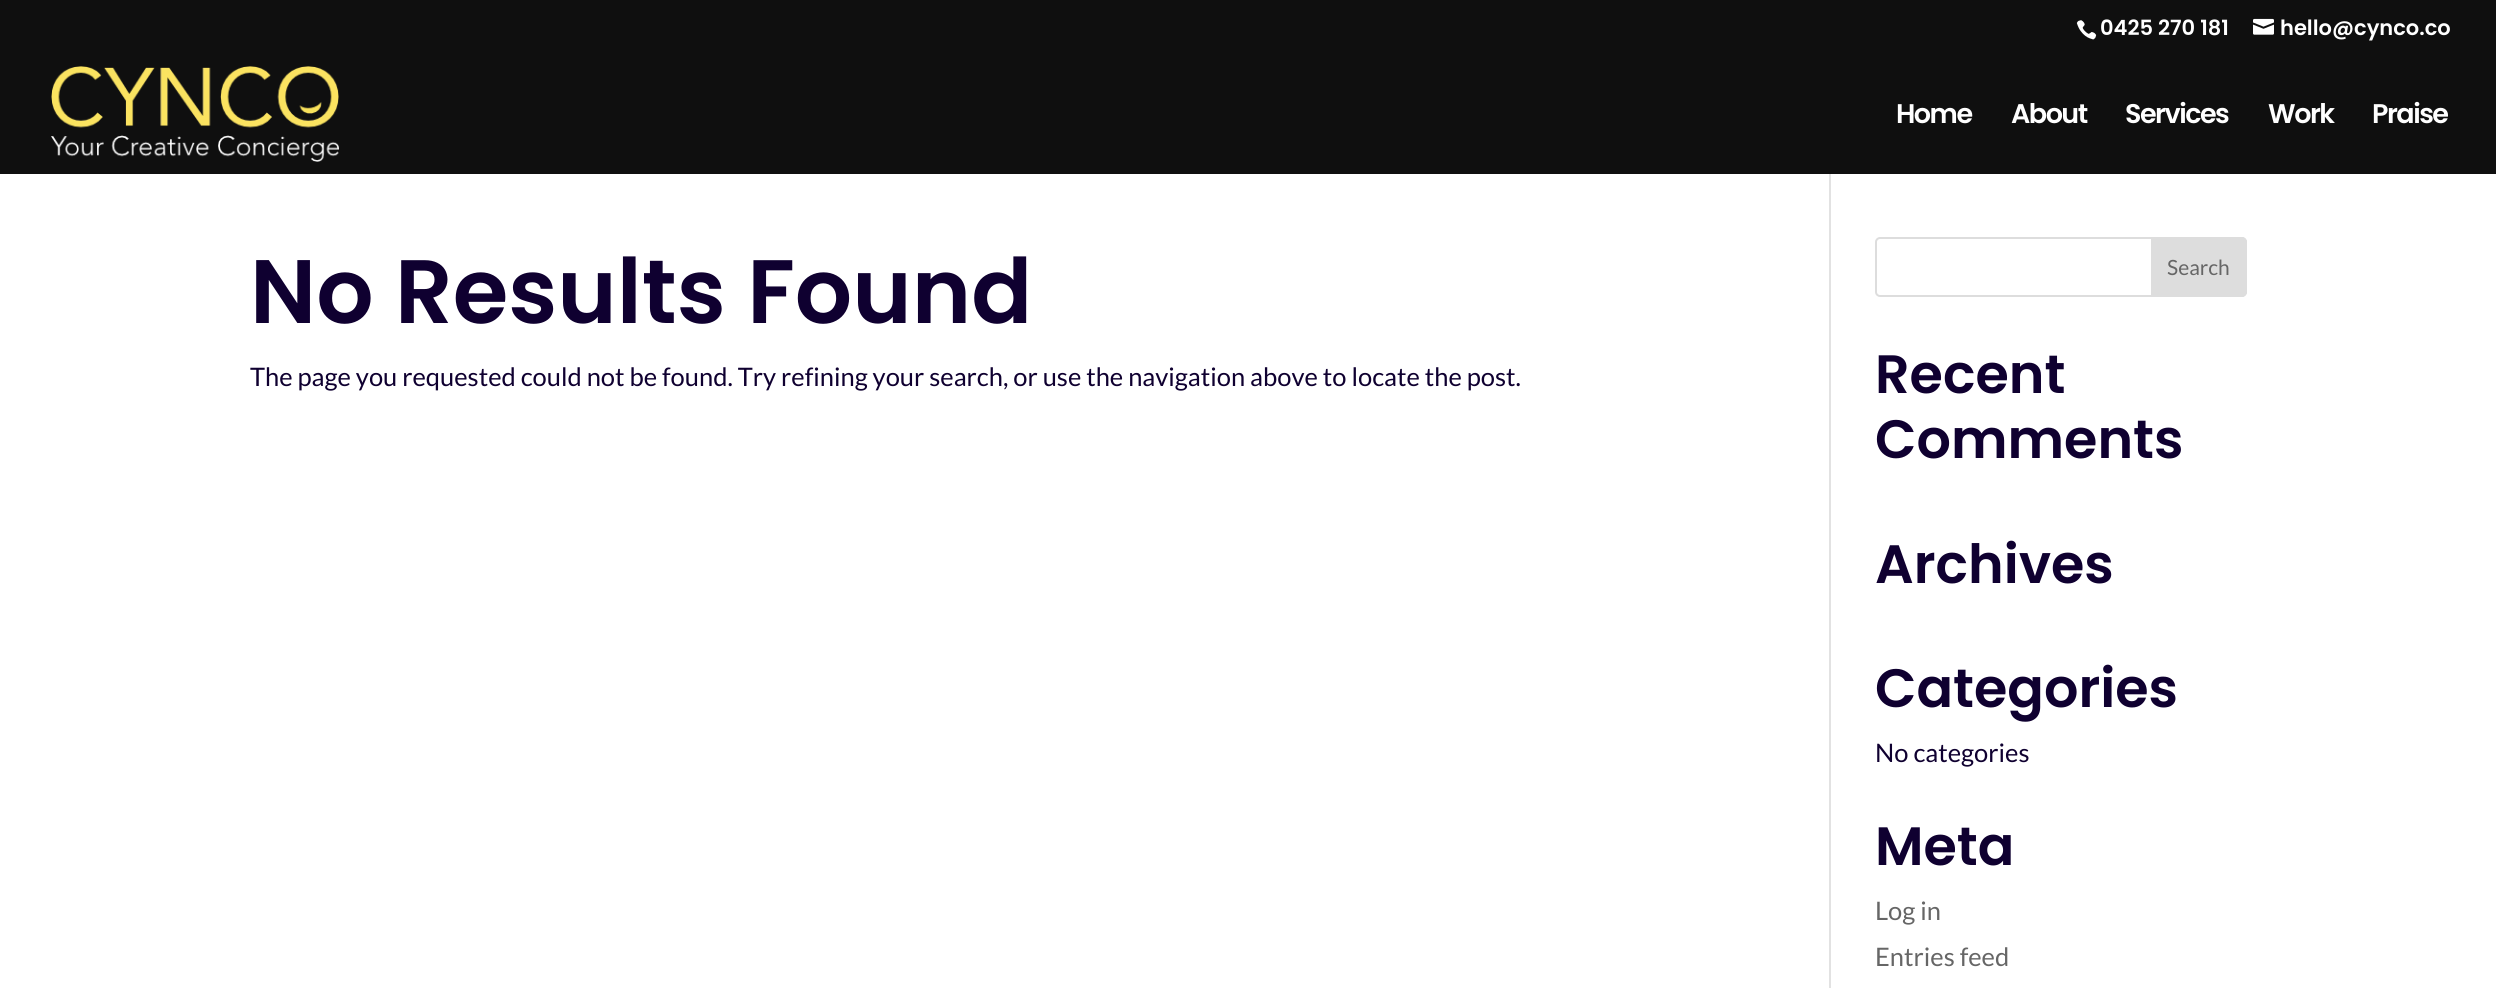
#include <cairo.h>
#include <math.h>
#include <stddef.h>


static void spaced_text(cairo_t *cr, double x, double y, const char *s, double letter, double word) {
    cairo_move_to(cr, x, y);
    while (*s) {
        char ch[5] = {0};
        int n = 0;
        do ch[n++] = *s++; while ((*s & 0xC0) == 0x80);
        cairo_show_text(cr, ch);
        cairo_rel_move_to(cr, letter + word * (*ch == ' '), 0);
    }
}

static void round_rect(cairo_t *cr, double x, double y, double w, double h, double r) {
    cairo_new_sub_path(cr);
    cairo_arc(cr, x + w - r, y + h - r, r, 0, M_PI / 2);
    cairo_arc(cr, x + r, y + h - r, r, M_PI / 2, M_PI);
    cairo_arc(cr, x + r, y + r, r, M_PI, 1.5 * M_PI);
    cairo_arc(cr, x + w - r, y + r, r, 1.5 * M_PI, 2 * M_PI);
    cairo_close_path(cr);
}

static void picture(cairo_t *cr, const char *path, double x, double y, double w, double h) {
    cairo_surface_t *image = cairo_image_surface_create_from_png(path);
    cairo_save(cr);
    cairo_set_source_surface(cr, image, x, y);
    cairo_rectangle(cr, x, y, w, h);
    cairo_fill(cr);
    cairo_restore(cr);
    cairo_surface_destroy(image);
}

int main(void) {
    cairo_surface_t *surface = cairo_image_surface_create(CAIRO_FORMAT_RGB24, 2496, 988);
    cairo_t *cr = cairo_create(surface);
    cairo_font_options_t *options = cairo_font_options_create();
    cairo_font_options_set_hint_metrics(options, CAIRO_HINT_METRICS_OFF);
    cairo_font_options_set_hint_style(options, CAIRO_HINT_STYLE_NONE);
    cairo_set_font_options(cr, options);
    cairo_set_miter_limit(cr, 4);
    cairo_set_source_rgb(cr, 1, 1, 1);
    cairo_paint(cr);
    cairo_set_source_rgb(cr, 0.059, 0.059, 0.059);
    cairo_rectangle(cr, 0, 0, 2496, 174);
    cairo_fill(cr);
    picture(cr, "img1.png", 2076, 20, 21, 20);
    cairo_select_font_face(cr, "Poppins SemiBold", CAIRO_FONT_SLANT_NORMAL, CAIRO_FONT_WEIGHT_NORMAL);
    cairo_set_font_size(cr, 21);
    cairo_set_source_rgb(cr, 1, 1, 1);
    cairo_move_to(cr, 2100, 35);
    cairo_show_text(cr, "0425 270 181");
    picture(cr, "img2.png", 2253, 18, 21, 17);
    cairo_move_to(cr, 2280, 35);
    cairo_show_text(cr, "hello@cynco.co");
    picture(cr, "img3.png", 51, 66, 288, 96);
    cairo_set_font_size(cr, 27);
    spaced_text(cr, 1896, 123, "Home", -1.5, 0);
    spaced_text(cr, 2011, 123, "About", -1.5, 0);
    spaced_text(cr, 2125, 123, "Services", -1.5, 0);
    spaced_text(cr, 2268, 123, "Work", -1.5, 0);
    spaced_text(cr, 2372, 123, "Praise", -1.5, 0);
    cairo_set_source_rgb(cr, 0.886, 0.886, 0.886);
    cairo_rectangle(cr, 1829, 174, 2, 814);
    cairo_fill(cr);
    cairo_set_font_size(cr, 90);
    cairo_set_source_rgb(cr, 0.059, 0, 0.188);
    cairo_move_to(cr, 250, 323);
    cairo_show_text(cr, "No Results Found");
    cairo_select_font_face(cr, "Lato", CAIRO_FONT_SLANT_NORMAL, CAIRO_FONT_WEIGHT_NORMAL);
    cairo_set_font_size(cr, 25.5);
    cairo_move_to(cr, 250, 386);
    cairo_show_text(cr, "The page you requested could not be found. Try refining your search, or use the navigation above to locate the post.");
    round_rect(cr, 1876, 238, 370, 58, 4);
    cairo_set_source_rgb(cr, 0.867, 0.867, 0.867);
    cairo_stroke(cr);
    cairo_new_path(cr);
    cairo_move_to(cr, 2152, 238);
    cairo_line_to(cr, 2242, 238);
    cairo_curve_to(cr, 2244, 238, 2246, 240, 2246, 242);
    cairo_line_to(cr, 2246, 292);
    cairo_curve_to(cr, 2246, 294, 2244, 296, 2242, 296);
    cairo_line_to(cr, 2152, 296);
    cairo_close_path(cr);
    cairo_fill_preserve(cr);
    cairo_stroke(cr);
    cairo_set_font_size(cr, 21);
    cairo_set_source_rgb(cr, 0.4, 0.4, 0.4);
    cairo_move_to(cr, 2167, 275);
    cairo_show_text(cr, "Search");
    cairo_select_font_face(cr, "Poppins SemiBold", CAIRO_FONT_SLANT_NORMAL, CAIRO_FONT_WEIGHT_NORMAL);
    cairo_set_font_size(cr, 54);
    cairo_set_source_rgb(cr, 0.059, 0, 0.188);
    cairo_move_to(cr, 1875, 393);
    cairo_show_text(cr, "Recent");
    cairo_move_to(cr, 1875, 458);
    cairo_show_text(cr, "Comments");
    cairo_move_to(cr, 1875, 583);
    cairo_show_text(cr, "Archives");
    cairo_move_to(cr, 1875, 707);
    cairo_show_text(cr, "Categories");
    cairo_select_font_face(cr, "Lato", CAIRO_FONT_SLANT_NORMAL, CAIRO_FONT_WEIGHT_NORMAL);
    cairo_set_font_size(cr, 25.5);
    cairo_move_to(cr, 1875, 762);
    cairo_show_text(cr, "No categories");
    cairo_select_font_face(cr, "Poppins SemiBold", CAIRO_FONT_SLANT_NORMAL, CAIRO_FONT_WEIGHT_NORMAL);
    cairo_set_font_size(cr, 54);
    cairo_move_to(cr, 1875, 865);
    cairo_show_text(cr, "Meta");
    cairo_select_font_face(cr, "Lato", CAIRO_FONT_SLANT_NORMAL, CAIRO_FONT_WEIGHT_NORMAL);
    cairo_set_font_size(cr, 25.5);
    cairo_set_source_rgb(cr, 0.4, 0.4, 0.4);
    cairo_move_to(cr, 1875, 920);
    cairo_show_text(cr, "Log in");
    cairo_move_to(cr, 1875, 966);
    cairo_show_text(cr, "Entries feed");
    cairo_surface_write_to_png(surface, "page.png");
    cairo_font_options_destroy(options);
    cairo_destroy(cr);
    cairo_surface_destroy(surface);
    return 0;
}
